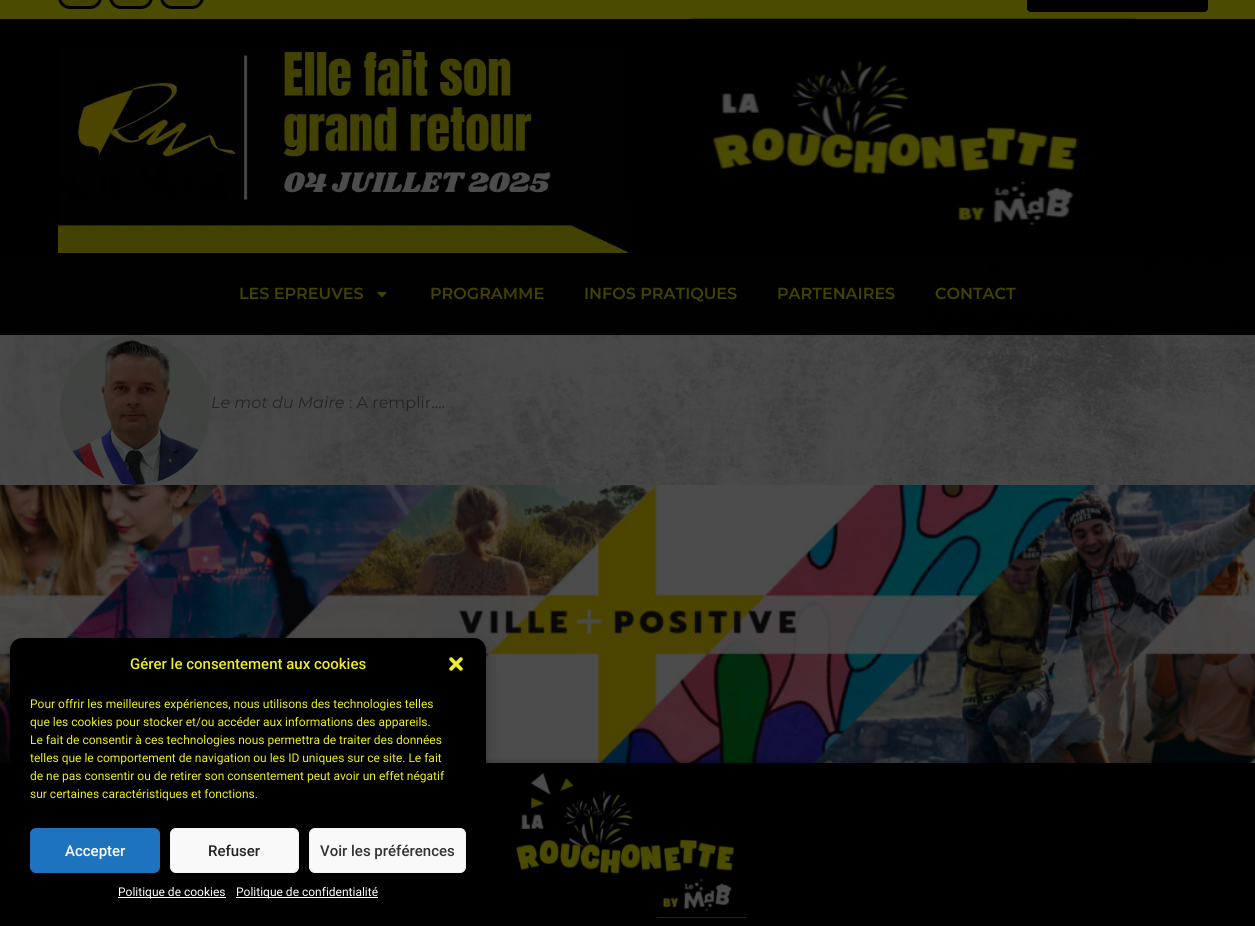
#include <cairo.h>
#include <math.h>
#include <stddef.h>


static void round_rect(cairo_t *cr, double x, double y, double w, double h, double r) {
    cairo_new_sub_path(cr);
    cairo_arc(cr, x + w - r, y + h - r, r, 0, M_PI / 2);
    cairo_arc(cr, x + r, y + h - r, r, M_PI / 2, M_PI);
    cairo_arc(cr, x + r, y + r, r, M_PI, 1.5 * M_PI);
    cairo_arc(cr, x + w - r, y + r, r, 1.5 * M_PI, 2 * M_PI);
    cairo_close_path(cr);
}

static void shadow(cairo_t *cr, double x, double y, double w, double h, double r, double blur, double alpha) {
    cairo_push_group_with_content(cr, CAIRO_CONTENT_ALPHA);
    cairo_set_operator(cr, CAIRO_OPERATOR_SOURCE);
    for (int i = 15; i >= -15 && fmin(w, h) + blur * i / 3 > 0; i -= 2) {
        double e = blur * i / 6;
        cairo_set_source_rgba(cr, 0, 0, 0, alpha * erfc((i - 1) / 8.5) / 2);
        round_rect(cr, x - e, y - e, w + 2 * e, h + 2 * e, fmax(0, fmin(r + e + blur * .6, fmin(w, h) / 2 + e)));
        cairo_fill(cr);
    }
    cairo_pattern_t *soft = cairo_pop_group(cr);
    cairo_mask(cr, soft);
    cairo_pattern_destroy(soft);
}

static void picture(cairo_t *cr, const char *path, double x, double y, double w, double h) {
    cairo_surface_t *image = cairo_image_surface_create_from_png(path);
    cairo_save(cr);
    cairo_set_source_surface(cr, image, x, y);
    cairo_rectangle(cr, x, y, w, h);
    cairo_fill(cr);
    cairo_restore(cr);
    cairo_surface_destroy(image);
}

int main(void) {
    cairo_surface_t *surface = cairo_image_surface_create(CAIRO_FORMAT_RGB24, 1255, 926);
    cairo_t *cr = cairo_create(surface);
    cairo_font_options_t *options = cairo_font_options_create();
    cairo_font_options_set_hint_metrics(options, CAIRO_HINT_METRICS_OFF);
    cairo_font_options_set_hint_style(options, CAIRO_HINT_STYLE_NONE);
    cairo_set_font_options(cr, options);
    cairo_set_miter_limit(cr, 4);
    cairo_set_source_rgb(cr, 1, 1, 1);
    cairo_paint(cr);
    picture(cr, "img1.png", 0, 254, 1255, 231);
    cairo_set_source_rgb(cr, 0.298, 0.298, 0);
    cairo_rectangle(cr, 0, 0, 1255, 19);
    cairo_fill(cr);
    cairo_set_source_rgb(cr, 0.263, 0.259, 0);
    round_rect(cr, 59.5, -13.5, 41, 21, 10.5);
    cairo_fill_preserve(cr);
    cairo_set_source_rgb(cr, 0, 0, 0);
    cairo_set_line_width(cr, 3);
    cairo_stroke(cr);
    cairo_set_source_rgb(cr, 0.263, 0.259, 0);
    round_rect(cr, 110.5, -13.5, 41, 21, 10.5);
    cairo_fill_preserve(cr);
    cairo_set_source_rgb(cr, 0, 0, 0);
    cairo_stroke(cr);
    cairo_set_source_rgb(cr, 0.263, 0.259, 0);
    round_rect(cr, 161.5, -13.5, 41, 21, 10.5);
    cairo_fill_preserve(cr);
    cairo_set_source_rgb(cr, 0, 0, 0);
    cairo_stroke(cr);
    round_rect(cr, 1027, -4, 181, 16, 4);
    cairo_fill(cr);
    cairo_rectangle(cr, 0, 19, 1255, 235);
    cairo_fill(cr);
    picture(cr, "img2.png", 58, 47, 570, 207);
    picture(cr, "img3.png", 690, 18, 446, 238);
    cairo_set_source_rgba(cr, 0, 0, 0, 0.99);
    cairo_rectangle(cr, 0, 253, 1255, 82);
    cairo_fill(cr);
    cairo_select_font_face(cr, "Montserrat SemiBold", CAIRO_FONT_SLANT_NORMAL, CAIRO_FONT_WEIGHT_NORMAL);
    cairo_set_font_size(cr, 16);
    cairo_set_source_rgb(cr, 0.263, 0.259, 0);
    cairo_move_to(cr, 239, 299);
    cairo_show_text(cr, "LES EPREUVES");
    picture(cr, "img4.png", 377, 292, 10, 6);
    cairo_move_to(cr, 430, 299);
    cairo_show_text(cr, "PROGRAMME");
    cairo_move_to(cr, 584, 299);
    cairo_show_text(cr, "INFOS PRATIQUES");
    cairo_move_to(cr, 777, 299);
    cairo_show_text(cr, "PARTENAIRES");
    cairo_move_to(cr, 935, 299);
    cairo_show_text(cr, "CONTACT");
    picture(cr, "img5.png", 60, 335, 150, 150);
    cairo_select_font_face(cr, "Montserrat", CAIRO_FONT_SLANT_ITALIC, CAIRO_FONT_WEIGHT_NORMAL);
    cairo_set_source_rgb(cr, 0.145, 0.145, 0.145);
    cairo_move_to(cr, 211, 408);
    cairo_show_text(cr, "Le mot du Maire");
    cairo_select_font_face(cr, "Montserrat", CAIRO_FONT_SLANT_NORMAL, CAIRO_FONT_WEIGHT_NORMAL);
    cairo_move_to(cr, 349, 408);
    cairo_show_text(cr, ": A remplir….");
    picture(cr, "img6.png", 0, 485, 1255, 278);
    cairo_set_source_rgb(cr, 0, 0, 0);
    cairo_rectangle(cr, 0, 763, 1255, 163);
    cairo_fill(cr);
    cairo_set_source_rgb(cr, 0, 0, 0);
    shadow(cr, 10, 644, 476, 278, 12, 3, 0.23);
    picture(cr, "img8.png", 514, 773, 233, 145);
    shadow(cr, 10, 648, 476, 278, 12, 10, 0.19);
    cairo_set_source_rgb(cr, 0, 0, 0);
    round_rect(cr, 10, 638, 476, 278, 12);
    cairo_fill(cr);
    cairo_select_font_face(cr, "Roboto Medium", CAIRO_FONT_SLANT_NORMAL, CAIRO_FONT_WEIGHT_NORMAL);
    cairo_set_font_size(cr, 15);
    cairo_set_source_rgb(cr, 0.933, 0.933, 0.133);
    cairo_move_to(cr, 130, 669);
    cairo_show_text(cr, "Gérer le consentement aux cookies");
    picture(cr, "img7.png", 449, 657, 14, 14);
    cairo_select_font_face(cr, "Roboto", CAIRO_FONT_SLANT_NORMAL, CAIRO_FONT_WEIGHT_NORMAL);
    cairo_set_font_size(cr, 12);
    cairo_move_to(cr, 30, 708);
    cairo_show_text(cr, "Pour offrir les meilleures expériences, nous utilisons des technologies telles");
    cairo_move_to(cr, 30, 726);
    cairo_show_text(cr, "que les cookies pour stocker et/ou accéder aux informations des appareils.");
    cairo_move_to(cr, 30, 744);
    cairo_show_text(cr, "Le fait de consentir à ces technologies nous permettra de traiter des données");
    cairo_move_to(cr, 30, 762);
    cairo_show_text(cr, "telles que le comportement de navigation ou les ID uniques sur ce site. Le fait");
    cairo_move_to(cr, 30, 780);
    cairo_show_text(cr, "de ne pas consentir ou de retirer son consentement peut avoir un effet négatif");
    cairo_move_to(cr, 30, 798);
    cairo_show_text(cr, "sur certaines caractéristiques et fonctions.");
    cairo_set_source_rgb(cr, 0.118, 0.451, 0.745);
    round_rect(cr, 30.5, 828.5, 129, 44, 5.5);
    cairo_fill_preserve(cr);
    cairo_set_line_width(cr, 1);
    cairo_stroke(cr);
    cairo_select_font_face(cr, "Roboto Medium", CAIRO_FONT_SLANT_NORMAL, CAIRO_FONT_WEIGHT_NORMAL);
    cairo_set_font_size(cr, 15);
    cairo_set_source_rgb(cr, 1, 1, 1);
    cairo_move_to(cr, 65, 856);
    cairo_show_text(cr, "Accepter");
    cairo_set_source_rgb(cr, 0.976, 0.976, 0.976);
    round_rect(cr, 170.5, 828.5, 128, 44, 5.5);
    cairo_fill_preserve(cr);
    cairo_set_source_rgb(cr, 0.949, 0.949, 0.949);
    cairo_stroke(cr);
    cairo_set_source_rgb(cr, 0.145, 0.145, 0.145);
    cairo_move_to(cr, 208, 856);
    cairo_show_text(cr, "Refuser");
    cairo_set_source_rgb(cr, 0.976, 0.976, 0.976);
    round_rect(cr, 309.5, 828.5, 156, 44, 5.5);
    cairo_fill_preserve(cr);
    cairo_set_source_rgb(cr, 0.949, 0.949, 0.949);
    cairo_stroke(cr);
    cairo_set_source_rgb(cr, 0.2, 0.2, 0.2);
    cairo_move_to(cr, 320, 856);
    cairo_show_text(cr, "Voir les préférences");
    cairo_set_source_rgb(cr, 1, 1, 1);
    cairo_rectangle(cr, 118, 897, 108, 1);
    cairo_fill(cr);
    cairo_select_font_face(cr, "Roboto", CAIRO_FONT_SLANT_NORMAL, CAIRO_FONT_WEIGHT_NORMAL);
    cairo_set_font_size(cr, 12);
    cairo_move_to(cr, 118, 896);
    cairo_show_text(cr, "Politique de cookies");
    cairo_rectangle(cr, 236, 897, 142, 1);
    cairo_fill(cr);
    cairo_move_to(cr, 236, 896);
    cairo_show_text(cr, "Politique de confidentialité");
    cairo_surface_write_to_png(surface, "page.png");
    cairo_font_options_destroy(options);
    cairo_destroy(cr);
    cairo_surface_destroy(surface);
    return 0;
}
